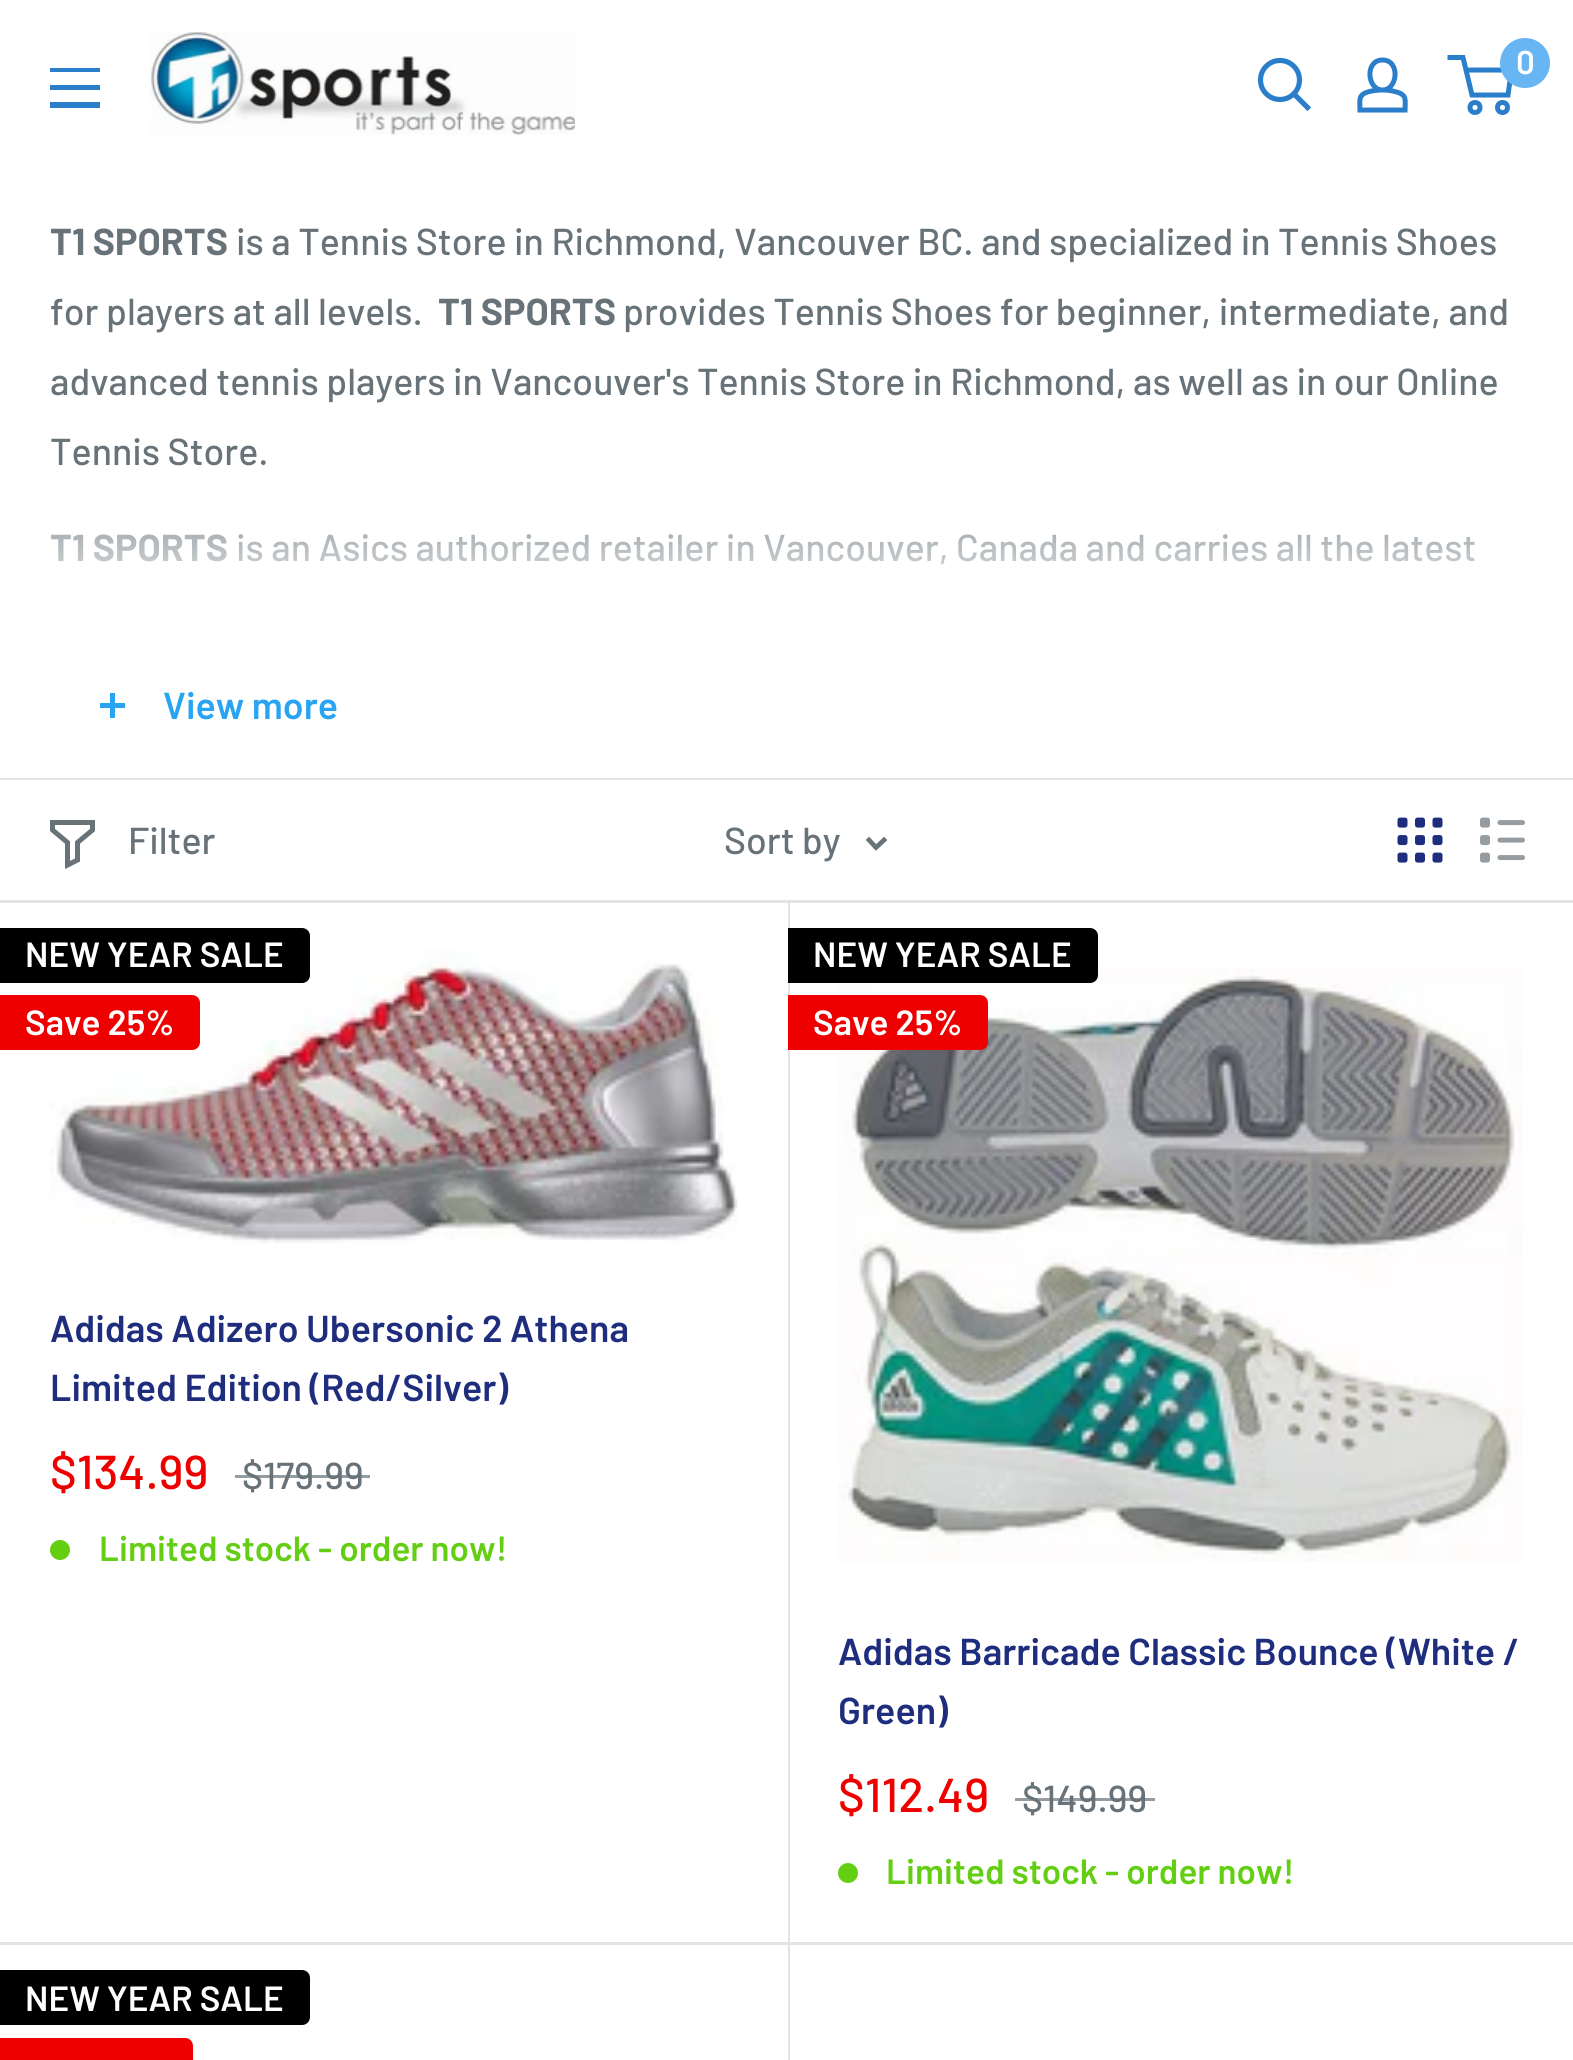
#include <cairo.h>
#include <math.h>
#include <stddef.h>


static void picture(cairo_t *cr, const char *path, double x, double y, double w, double h) {
    cairo_surface_t *image = cairo_image_surface_create_from_png(path);
    cairo_save(cr);
    cairo_set_source_surface(cr, image, x, y);
    cairo_rectangle(cr, x, y, w, h);
    cairo_fill(cr);
    cairo_restore(cr);
    cairo_surface_destroy(image);
}

int main(void) {
    cairo_surface_t *surface = cairo_image_surface_create(CAIRO_FORMAT_RGB24, 1573, 2060);
    cairo_t *cr = cairo_create(surface);
    cairo_font_options_t *options = cairo_font_options_create();
    cairo_font_options_set_hint_metrics(options, CAIRO_HINT_METRICS_OFF);
    cairo_font_options_set_hint_style(options, CAIRO_HINT_STYLE_NONE);
    cairo_set_font_options(cr, options);
    cairo_set_miter_limit(cr, 4);
    cairo_pattern_t *gradient;
    cairo_set_source_rgb(cr, 1, 1, 1);
    cairo_paint(cr);
    picture(cr, "img1.png", 150, 32, 425, 104);
    cairo_new_path(cr);
    cairo_move_to(cr, 1307.5, 107.5);
    cairo_line_to(cr, 1294, 94);
    cairo_set_source_rgb(cr, 0.169, 0.498, 0.792);
    cairo_set_line_width(cr, 5.2);
    cairo_set_line_cap(cr, CAIRO_LINE_CAP_SQUARE);
    cairo_stroke(cr);
    cairo_arc(cr, 1280, 80, 19.5, 0, 2 * M_PI);
    cairo_set_line_cap(cr, CAIRO_LINE_CAP_BUTT);
    cairo_stroke(cr);
    cairo_new_path(cr);
    cairo_move_to(cr, 1382.5, 90);
    cairo_curve_to(cr, 1387, 90, 1392, 90.5, 1396.5, 92);
    cairo_curve_to(cr, 1407.5, 95, 1405, 100.5, 1405, 110);
    cairo_line_to(cr, 1360, 110);
    cairo_curve_to(cr, 1360, 100, 1357.5, 94.5, 1369.5, 91.5);
    cairo_curve_to(cr, 1373.5, 90.5, 1378, 90, 1382.5, 90);
    cairo_close_path(cr);
    cairo_move_to(cr, 1382.5, 90);
    cairo_curve_to(cr, 1367, 90, 1364.5, 60, 1382.5, 60);
    cairo_curve_to(cr, 1400.5, 60, 1398, 90, 1382.5, 90);
    cairo_close_path(cr);
    cairo_set_line_width(cr, 5);
    cairo_stroke(cr);
    cairo_arc(cr, 1475, 107.5, 5, 0, 2 * M_PI);
    cairo_stroke(cr);
    cairo_arc(cr, 1502.5, 107.5, 5, 0, 2 * M_PI);
    cairo_stroke(cr);
    cairo_new_path(cr);
    cairo_move_to(cr, 1466, 70);
    cairo_line_to(cr, 1511.5, 70);
    cairo_line_to(cr, 1508, 95);
    cairo_line_to(cr, 1472, 95);
    cairo_line_to(cr, 1463, 57.5);
    cairo_line_to(cr, 1447.5, 57.5);
    cairo_stroke(cr);
    cairo_set_source_rgb(cr, 0.408, 0.71, 0.957);
    cairo_arc(cr, 1525, 63, 25, 0, 2 * M_PI);
    cairo_fill(cr);
    cairo_select_font_face(cr, "Barlow SemiBold", CAIRO_FONT_SLANT_NORMAL, CAIRO_FONT_WEIGHT_NORMAL);
    cairo_set_font_size(cr, 33);
    cairo_set_source_rgb(cr, 1, 1, 1);
    cairo_move_to(cr, 1516, 74);
    cairo_show_text(cr, "0");
    cairo_set_source_rgb(cr, 0.169, 0.498, 0.792);
    cairo_set_fill_rule(cr, CAIRO_FILL_RULE_EVEN_ODD);
    cairo_new_path(cr);
    cairo_move_to(cr, 50, 102);
    cairo_line_to(cr, 100, 102);
    cairo_line_to(cr, 100, 108);
    cairo_line_to(cr, 50, 108);
    cairo_close_path(cr);
    cairo_move_to(cr, 50, 68);
    cairo_line_to(cr, 100, 68);
    cairo_line_to(cr, 100, 72);
    cairo_line_to(cr, 50, 72);
    cairo_close_path(cr);
    cairo_move_to(cr, 50, 85);
    cairo_line_to(cr, 100, 85);
    cairo_line_to(cr, 100, 90);
    cairo_line_to(cr, 50, 90);
    cairo_close_path(cr);
    cairo_fill(cr);
    cairo_select_font_face(cr, "Barlow", CAIRO_FONT_SLANT_NORMAL, CAIRO_FONT_WEIGHT_BOLD);
    cairo_set_font_size(cr, 37.5);
    cairo_set_source_rgb(cr, 0.404, 0.447, 0.475);
    cairo_move_to(cr, 50, 255);
    cairo_show_text(cr, "T1 SPORTS");
    cairo_select_font_face(cr, "Barlow Medium", CAIRO_FONT_SLANT_NORMAL, CAIRO_FONT_WEIGHT_NORMAL);
    cairo_move_to(cr, 236, 255);
    cairo_show_text(cr, "is a Tennis Store in Richmond, Vancouver BC. and specialized in Tennis Shoes");
    cairo_move_to(cr, 50, 325);
    cairo_show_text(cr, "for players at all levels.");
    cairo_select_font_face(cr, "Barlow", CAIRO_FONT_SLANT_NORMAL, CAIRO_FONT_WEIGHT_BOLD);
    cairo_move_to(cr, 438, 325);
    cairo_show_text(cr, "T1 SPORTS");
    cairo_select_font_face(cr, "Barlow Medium", CAIRO_FONT_SLANT_NORMAL, CAIRO_FONT_WEIGHT_NORMAL);
    cairo_move_to(cr, 623, 325);
    cairo_show_text(cr, "provides Tennis Shoes for beginner, intermediate, and");
    cairo_move_to(cr, 50, 395);
    cairo_show_text(cr, "advanced tennis players in Vancouver's Tennis Store in Richmond, as well as in our Online");
    cairo_move_to(cr, 50, 465);
    cairo_show_text(cr, "Tennis Store.");
    cairo_select_font_face(cr, "Barlow", CAIRO_FONT_SLANT_NORMAL, CAIRO_FONT_WEIGHT_BOLD);
    cairo_move_to(cr, 50, 561);
    cairo_show_text(cr, "T1 SPORTS");
    cairo_select_font_face(cr, "Barlow Medium", CAIRO_FONT_SLANT_NORMAL, CAIRO_FONT_WEIGHT_NORMAL);
    cairo_move_to(cr, 236, 561);
    cairo_show_text(cr, "is an Asics authorized retailer in Vancouver, Canada and carries all the latest");
    gradient = cairo_pattern_create_linear(788, 505, 788, 630);
    cairo_pattern_add_color_stop_rgba(gradient, 0, 1, 1, 1, 0);
    cairo_pattern_add_color_stop_rgba(gradient, 0.15, 1, 1, 1, 0.4);
    cairo_pattern_add_color_stop_rgba(gradient, 1, 1, 1, 1, 1);
    cairo_set_source(cr, gradient);
    cairo_pattern_destroy(gradient);
    cairo_rectangle(cr, 51, 534, 1424, 31);
    cairo_fill(cr);
    cairo_set_source_rgb(cr, 0.157, 0.643, 0.953);
    cairo_rectangle(cr, 110, 693, 5, 25);
    cairo_fill(cr);
    cairo_rectangle(cr, 100, 703, 25, 5);
    cairo_fill(cr);
    cairo_select_font_face(cr, "Barlow SemiBold", CAIRO_FONT_SLANT_NORMAL, CAIRO_FONT_WEIGHT_NORMAL);
    cairo_move_to(cr, 163, 719);
    cairo_show_text(cr, "View more");
    cairo_set_source_rgb(cr, 0.882, 0.89, 0.894);
    cairo_rectangle(cr, 0, 778, 1573, 2);
    cairo_fill(cr);
    cairo_set_fill_rule(cr, CAIRO_FILL_RULE_WINDING);
    cairo_new_path(cr);
    cairo_move_to(cr, 0, 1942);
    cairo_line_to(cr, 0, 1945);
    cairo_line_to(cr, 788, 1945);
    cairo_line_to(cr, 788, 903);
    cairo_line_to(cr, 788, 1942);
    cairo_close_path(cr);
    cairo_fill(cr);
    picture(cr, "img4.png", 50, 950, 688, 294);
    cairo_set_source_rgb(cr, 0, 0, 0);
    cairo_new_path(cr);
    cairo_move_to(cr, 0, 928);
    cairo_line_to(cr, 302, 928);
    cairo_curve_to(cr, 306.5, 928, 310, 931.5, 310, 936);
    cairo_line_to(cr, 310, 975);
    cairo_curve_to(cr, 310, 979.5, 306.5, 983, 302, 983);
    cairo_line_to(cr, 0, 983);
    cairo_close_path(cr);
    cairo_fill(cr);
    cairo_set_font_size(cr, 35);
    cairo_set_source_rgb(cr, 1, 1, 1);
    cairo_move_to(cr, 25, 967);
    cairo_show_text(cr, "NEW YEAR SALE");
    cairo_set_source_rgb(cr, 0.933, 0, 0);
    cairo_new_path(cr);
    cairo_move_to(cr, 0, 995);
    cairo_line_to(cr, 192, 995);
    cairo_curve_to(cr, 196.5, 995, 200, 998.5, 200, 1003);
    cairo_line_to(cr, 200, 1042);
    cairo_curve_to(cr, 200, 1046.5, 196.5, 1050, 192, 1050);
    cairo_line_to(cr, 0, 1050);
    cairo_close_path(cr);
    cairo_fill(cr);
    cairo_set_source_rgb(cr, 1, 1, 1);
    cairo_move_to(cr, 25, 1035);
    cairo_show_text(cr, "Save 25%");
    cairo_set_font_size(cr, 37.5);
    cairo_set_source_rgb(cr, 0.118, 0.176, 0.49);
    cairo_move_to(cr, 50, 1342);
    cairo_show_text(cr, "Adidas Adizero Ubersonic 2 Athena");
    cairo_move_to(cr, 50, 1401);
    cairo_show_text(cr, "Limited Edition (Red/Silver)");
    cairo_select_font_face(cr, "Barlow Medium", CAIRO_FONT_SLANT_NORMAL, CAIRO_FONT_WEIGHT_NORMAL);
    cairo_set_font_size(cr, 47.5);
    cairo_set_source_rgb(cr, 0.933, 0, 0);
    cairo_move_to(cr, 50, 1489);
    cairo_show_text(cr, "$134.99");
    cairo_set_font_size(cr, 37.5);
    cairo_set_source_rgb(cr, 0.404, 0.447, 0.475);
    cairo_move_to(cr, 242, 1489);
    cairo_show_text(cr, "$179.99");
    cairo_set_source_rgba(cr, 0.404, 0.447, 0.475, 0.7);
    cairo_rectangle(cr, 235, 1475, 135, 3);
    cairo_fill(cr);
    cairo_set_source_rgb(cr, 0.392, 0.808, 0.078);
    cairo_arc(cr, 60, 1550, 10, 0, 2 * M_PI);
    cairo_fill(cr);
    cairo_select_font_face(cr, "Barlow SemiBold", CAIRO_FONT_SLANT_NORMAL, CAIRO_FONT_WEIGHT_NORMAL);
    cairo_set_font_size(cr, 35);
    cairo_move_to(cr, 99, 1561);
    cairo_show_text(cr, "Limited stock - order now!");
    cairo_set_source_rgb(cr, 0.882, 0.89, 0.894);
    cairo_new_path(cr);
    cairo_move_to(cr, 3, 1942);
    cairo_line_to(cr, 3, 1943);
    cairo_line_to(cr, 790, 1943);
    cairo_line_to(cr, 790, 900);
    cairo_line_to(cr, 788, 900);
    cairo_line_to(cr, 788, 1942);
    cairo_close_path(cr);
    cairo_fill(cr);
    cairo_rectangle(cr, 0, 900, 1573, 3);
    cairo_fill(cr);
    cairo_new_path(cr);
    cairo_move_to(cr, 92.5, 830);
    cairo_line_to(cr, 77.5, 842.5);
    cairo_line_to(cr, 77.5, 860);
    cairo_line_to(cr, 67.5, 865);
    cairo_line_to(cr, 67.5, 842.5);
    cairo_line_to(cr, 52.5, 830);
    cairo_line_to(cr, 52.5, 822.5);
    cairo_line_to(cr, 92.5, 822.5);
    cairo_close_path(cr);
    cairo_set_source_rgb(cr, 0.404, 0.447, 0.475);
    cairo_set_line_cap(cr, CAIRO_LINE_CAP_SQUARE);
    cairo_stroke(cr);
    cairo_select_font_face(cr, "Barlow Medium", CAIRO_FONT_SLANT_NORMAL, CAIRO_FONT_WEIGHT_NORMAL);
    cairo_set_font_size(cr, 37.5);
    cairo_move_to(cr, 128, 854);
    cairo_show_text(cr, "Filter");
    cairo_move_to(cr, 724, 854);
    cairo_show_text(cr, "Sort by");
    cairo_new_path(cr);
    cairo_move_to(cr, 884, 840);
    cairo_line_to(cr, 876, 847.5);
    cairo_line_to(cr, 869, 840);
    cairo_set_line_width(cr, 4.7);
    cairo_stroke(cr);
    picture(cr, "img2.png", 1397, 817, 46, 46);
    picture(cr, "img3.png", 1480, 817, 45, 46);
    picture(cr, "img5.png", 838, 967, 685, 595);
    cairo_set_source_rgb(cr, 0, 0, 0);
    cairo_new_path(cr);
    cairo_move_to(cr, 788, 928);
    cairo_line_to(cr, 1090, 928);
    cairo_curve_to(cr, 1094.5, 928, 1098, 931.5, 1098, 936);
    cairo_line_to(cr, 1098, 975);
    cairo_curve_to(cr, 1098, 979.5, 1094.5, 983, 1090, 983);
    cairo_line_to(cr, 788, 983);
    cairo_close_path(cr);
    cairo_fill(cr);
    cairo_select_font_face(cr, "Barlow SemiBold", CAIRO_FONT_SLANT_NORMAL, CAIRO_FONT_WEIGHT_NORMAL);
    cairo_set_font_size(cr, 35);
    cairo_set_source_rgb(cr, 1, 1, 1);
    cairo_move_to(cr, 813, 967);
    cairo_show_text(cr, "NEW YEAR SALE");
    cairo_set_source_rgb(cr, 0.933, 0, 0);
    cairo_new_path(cr);
    cairo_move_to(cr, 788, 995);
    cairo_line_to(cr, 980, 995);
    cairo_curve_to(cr, 984.5, 995, 988, 998.5, 988, 1003);
    cairo_line_to(cr, 988, 1042);
    cairo_curve_to(cr, 988, 1046.5, 984.5, 1050, 980, 1050);
    cairo_line_to(cr, 788, 1050);
    cairo_close_path(cr);
    cairo_fill(cr);
    cairo_set_source_rgb(cr, 1, 1, 1);
    cairo_move_to(cr, 813, 1035);
    cairo_show_text(cr, "Save 25%");
    cairo_set_font_size(cr, 37.5);
    cairo_set_source_rgb(cr, 0.118, 0.176, 0.49);
    cairo_move_to(cr, 838, 1665);
    cairo_show_text(cr, "Adidas Barricade Classic Bounce (White /");
    cairo_move_to(cr, 838, 1724);
    cairo_show_text(cr, "Green)");
    cairo_select_font_face(cr, "Barlow Medium", CAIRO_FONT_SLANT_NORMAL, CAIRO_FONT_WEIGHT_NORMAL);
    cairo_set_font_size(cr, 47.5);
    cairo_set_source_rgb(cr, 0.933, 0, 0);
    cairo_move_to(cr, 838, 1812);
    cairo_show_text(cr, "$112.49");
    cairo_set_font_size(cr, 37.5);
    cairo_set_source_rgb(cr, 0.404, 0.447, 0.475);
    cairo_move_to(cr, 1022, 1812);
    cairo_show_text(cr, "$149.99");
    cairo_set_source_rgba(cr, 0.404, 0.447, 0.475, 0.7);
    cairo_rectangle(cr, 1015, 1798, 140, 3);
    cairo_fill(cr);
    cairo_set_source_rgb(cr, 0.392, 0.808, 0.078);
    cairo_arc(cr, 848, 1873, 10, 0, 2 * M_PI);
    cairo_fill(cr);
    cairo_select_font_face(cr, "Barlow SemiBold", CAIRO_FONT_SLANT_NORMAL, CAIRO_FONT_WEIGHT_NORMAL);
    cairo_set_font_size(cr, 35);
    cairo_move_to(cr, 886, 1884);
    cairo_show_text(cr, "Limited stock - order now!");
    cairo_set_source_rgb(cr, 0.882, 0.89, 0.894);
    cairo_rectangle(cr, 788, 1942, 785, 3);
    cairo_fill(cr);
    cairo_set_source_rgb(cr, 0, 0, 0);
    cairo_new_path(cr);
    cairo_move_to(cr, 0, 1970);
    cairo_line_to(cr, 302, 1970);
    cairo_curve_to(cr, 306.5, 1970, 310, 1973.5, 310, 1978);
    cairo_line_to(cr, 310, 2017);
    cairo_curve_to(cr, 310, 2021.5, 306.5, 2025, 302, 2025);
    cairo_line_to(cr, 0, 2025);
    cairo_close_path(cr);
    cairo_fill(cr);
    cairo_set_source_rgb(cr, 1, 1, 1);
    cairo_move_to(cr, 25, 2011);
    cairo_show_text(cr, "NEW YEAR SALE");
    cairo_set_source_rgb(cr, 0.933, 0, 0);
    cairo_new_path(cr);
    cairo_move_to(cr, 0, 2038);
    cairo_line_to(cr, 185, 2038);
    cairo_curve_to(cr, 189.5, 2038, 193, 2041.5, 193, 2046);
    cairo_line_to(cr, 193, 2060);
    cairo_curve_to(cr, 193, 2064.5, 189.5, 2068, 185, 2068);
    cairo_line_to(cr, 0, 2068);
    cairo_close_path(cr);
    cairo_fill(cr);
    cairo_set_source_rgb(cr, 0.882, 0.89, 0.894);
    cairo_new_path(cr);
    cairo_move_to(cr, 3, 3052);
    cairo_line_to(cr, 3, 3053);
    cairo_line_to(cr, 790, 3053);
    cairo_line_to(cr, 790, 1943);
    cairo_line_to(cr, 788, 1943);
    cairo_line_to(cr, 788, 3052);
    cairo_close_path(cr);
    cairo_fill(cr);
    cairo_surface_write_to_png(surface, "page.png");
    cairo_font_options_destroy(options);
    cairo_destroy(cr);
    cairo_surface_destroy(surface);
    return 0;
}
